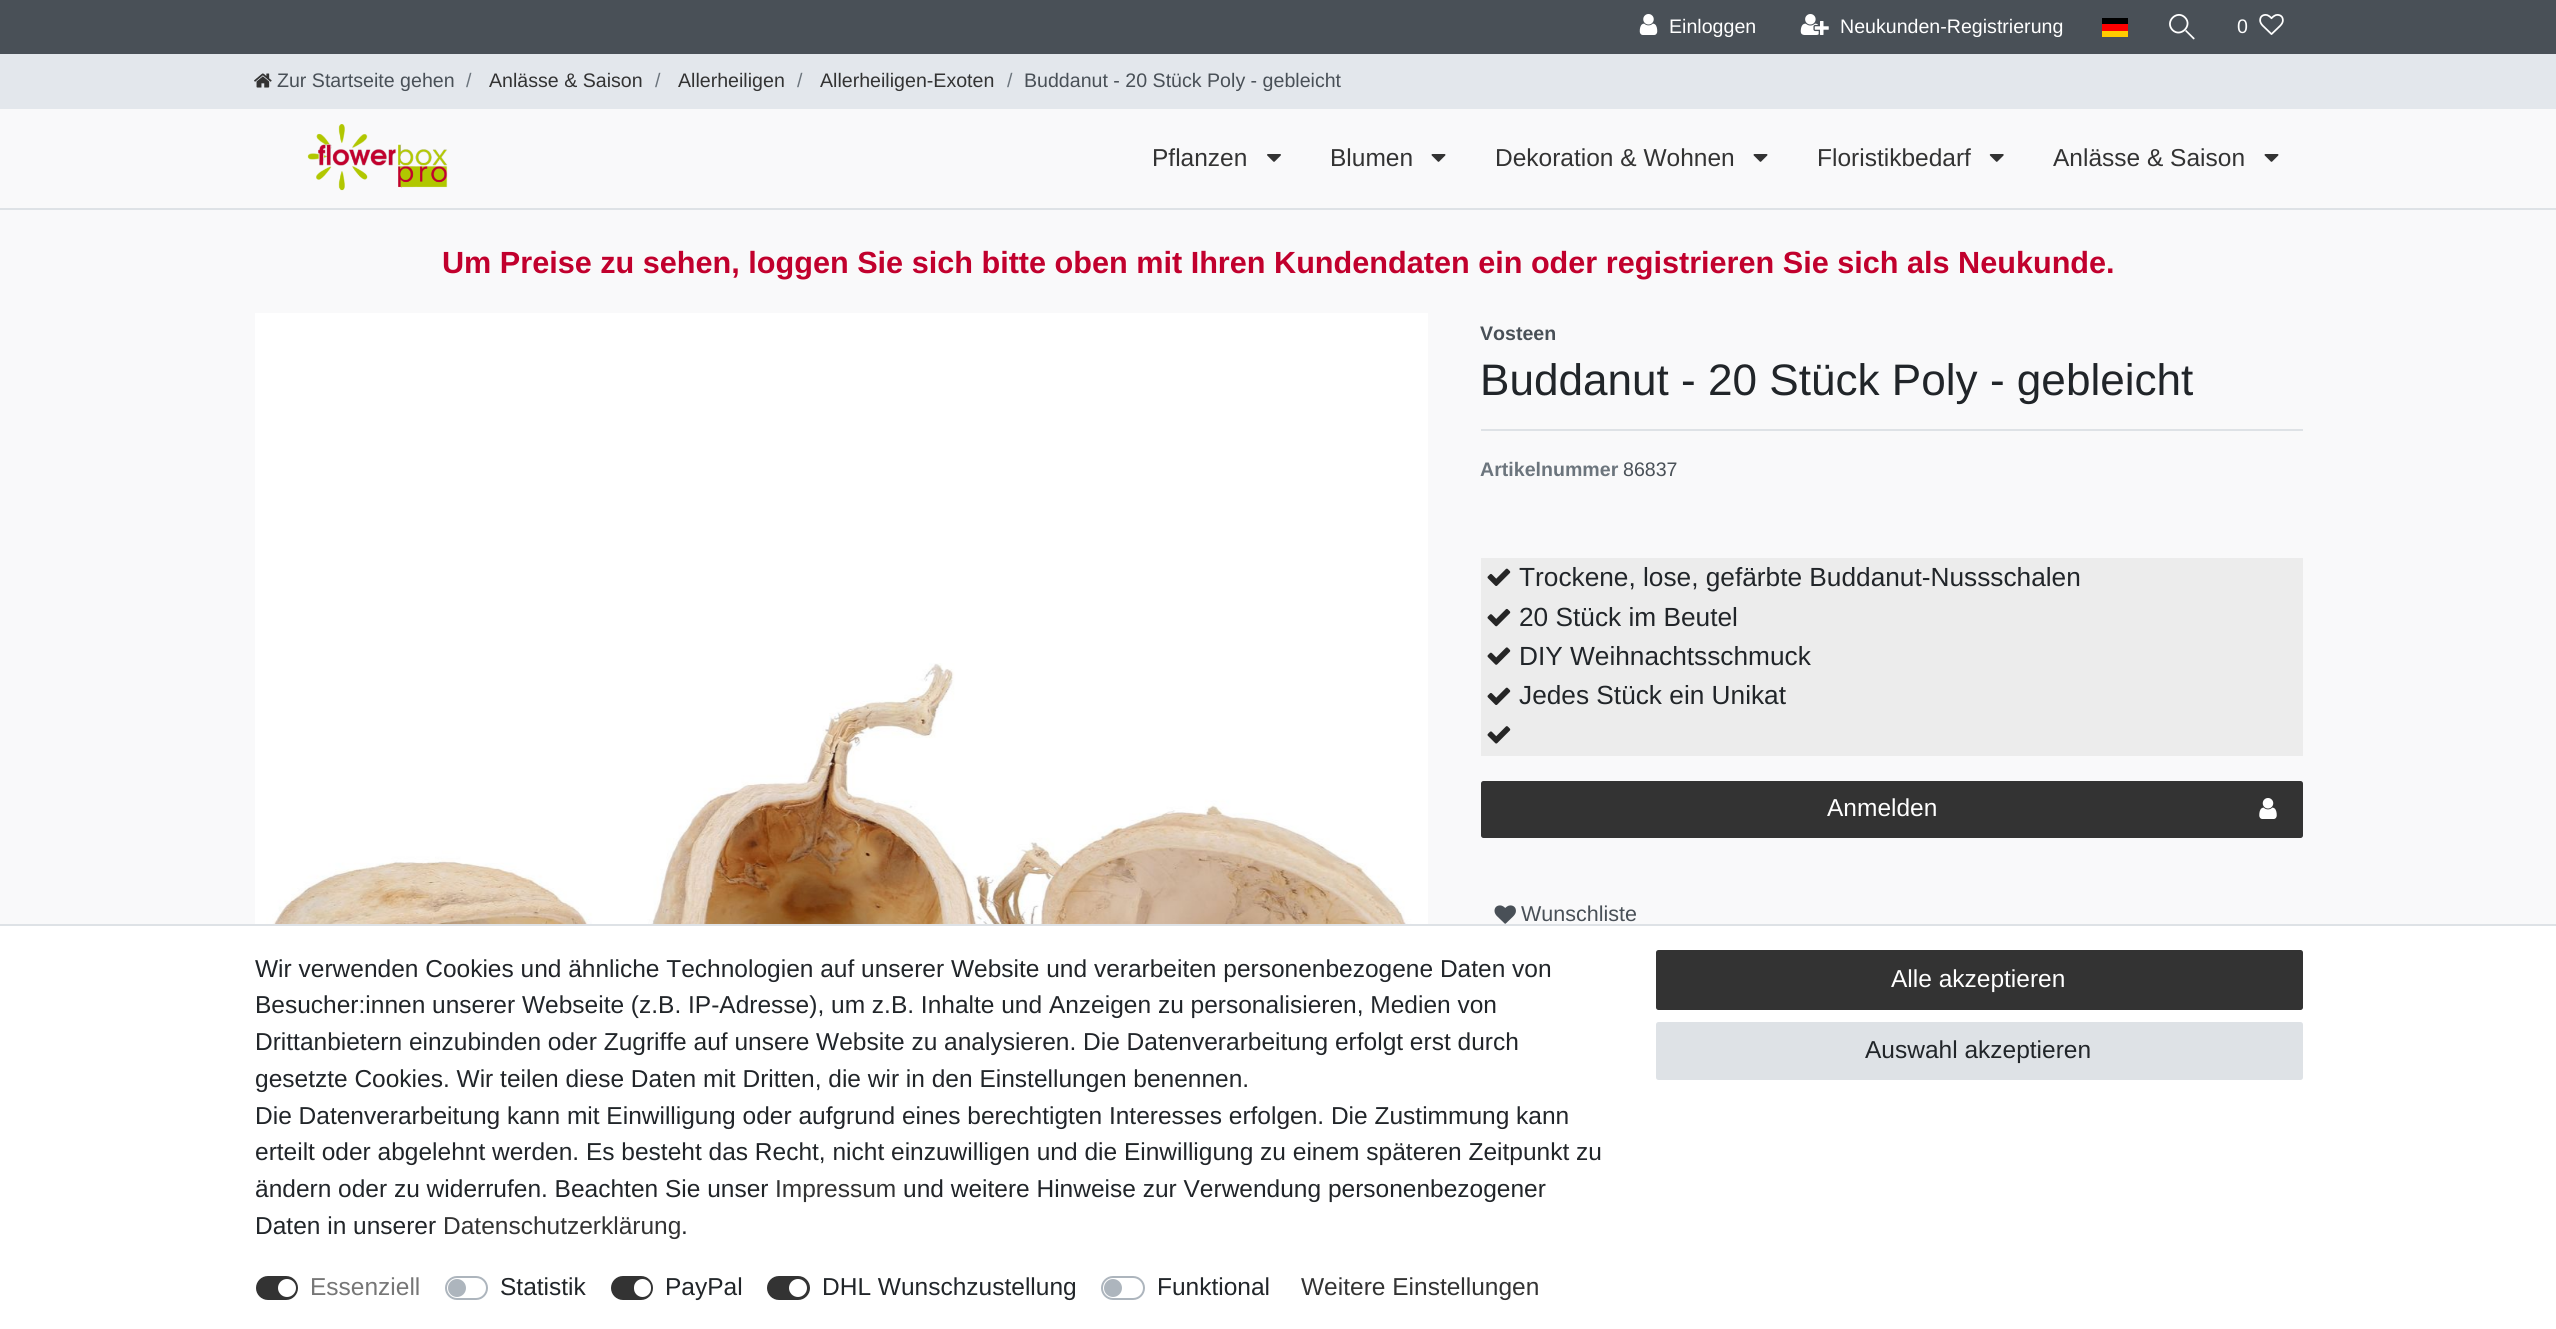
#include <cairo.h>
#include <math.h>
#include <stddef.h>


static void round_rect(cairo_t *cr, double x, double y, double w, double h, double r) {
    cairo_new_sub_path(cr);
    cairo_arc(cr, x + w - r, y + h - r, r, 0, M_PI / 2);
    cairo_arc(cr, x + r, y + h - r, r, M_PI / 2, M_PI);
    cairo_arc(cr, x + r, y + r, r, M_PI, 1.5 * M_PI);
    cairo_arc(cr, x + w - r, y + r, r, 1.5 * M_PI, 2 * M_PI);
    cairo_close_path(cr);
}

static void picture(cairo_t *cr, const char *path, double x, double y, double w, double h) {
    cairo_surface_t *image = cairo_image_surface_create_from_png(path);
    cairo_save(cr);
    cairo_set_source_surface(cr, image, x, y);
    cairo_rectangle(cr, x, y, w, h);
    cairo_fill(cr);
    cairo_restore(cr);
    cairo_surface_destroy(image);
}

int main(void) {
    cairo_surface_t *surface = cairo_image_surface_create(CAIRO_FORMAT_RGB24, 2556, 1329);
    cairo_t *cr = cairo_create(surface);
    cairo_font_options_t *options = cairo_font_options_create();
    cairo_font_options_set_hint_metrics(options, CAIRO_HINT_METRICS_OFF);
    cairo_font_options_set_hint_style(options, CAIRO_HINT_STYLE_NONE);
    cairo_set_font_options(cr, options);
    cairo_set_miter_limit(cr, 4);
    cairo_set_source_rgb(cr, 0.973, 0.976, 0.98);
    cairo_paint(cr);
    cairo_set_source_rgb(cr, 0.286, 0.314, 0.341);
    cairo_rectangle(cr, 0, 0, 2556, 54);
    cairo_fill(cr);
    picture(cr, "img1.png", 1639, 14, 19, 21);
    cairo_select_font_face(cr, "Liberation Sans", CAIRO_FONT_SLANT_NORMAL, CAIRO_FONT_WEIGHT_NORMAL);
    cairo_set_font_size(cr, 19.6);
    cairo_set_source_rgb(cr, 1, 1, 1);
    cairo_move_to(cr, 1669, 33);
    cairo_show_text(cr, "Einloggen");
    picture(cr, "img2.png", 1800, 14, 29, 21);
    cairo_move_to(cr, 1840, 33);
    cairo_show_text(cr, "Neukunden-Registrierung");
    cairo_set_source_rgb(cr, 1, 0.8, 0);
    cairo_rectangle(cr, 2102, 31, 26, 6);
    cairo_fill(cr);
    cairo_set_source_rgb(cr, 0, 0, 0);
    cairo_rectangle(cr, 2102, 18, 26, 6);
    cairo_fill(cr);
    cairo_set_source_rgb(cr, 1, 0, 0);
    cairo_rectangle(cr, 2102, 24, 26, 7);
    cairo_fill(cr);
    cairo_set_source_rgb(cr, 1, 1, 1);
    cairo_new_path(cr);
    cairo_move_to(cr, 2193, 39);
    cairo_line_to(cr, 2175.5, 21.5);
    cairo_line_to(cr, 2175.5, 21);
    cairo_curve_to(cr, 2175.5, 20.5, 2176, 20, 2176.5, 20.5);
    cairo_line_to(cr, 2194.5, 38);
    cairo_curve_to(cr, 2195, 39, 2193.5, 40, 2193, 39);
    cairo_close_path(cr);
    cairo_fill(cr);
    cairo_set_source_rgb(cr, 0.286, 0.314, 0.341);
    cairo_new_path(cr);
    cairo_move_to(cr, 2172, 30.5);
    cairo_curve_to(cr, 2163, 21.5, 2176.5, 8, 2185.5, 17);
    cairo_curve_to(cr, 2194.5, 26, 2181, 39.5, 2172, 30.5);
    cairo_close_path(cr);
    cairo_fill(cr);
    cairo_new_path(cr);
    cairo_move_to(cr, 2172.5, 30);
    cairo_curve_to(cr, 2164.5, 21.5, 2177, 9.5, 2185, 17.5);
    cairo_curve_to(cr, 2193, 25.5, 2180.5, 38, 2172.5, 30);
    cairo_close_path(cr);
    cairo_set_source_rgb(cr, 1, 1, 1);
    cairo_set_line_width(cr, 1.8);
    cairo_stroke(cr);
    cairo_move_to(cr, 2237, 33);
    cairo_show_text(cr, "0");
    picture(cr, "img3.png", 2259, 14, 25, 21);
    cairo_set_source_rgb(cr, 0.89, 0.906, 0.922);
    cairo_rectangle(cr, 0, 54, 2556, 55);
    cairo_fill(cr);
    picture(cr, "img4.png", 254, 73, 18, 15);
    cairo_set_source_rgb(cr, 0.286, 0.314, 0.341);
    cairo_move_to(cr, 277, 87);
    cairo_show_text(cr, "Zur Startseite gehen");
    cairo_set_source_rgb(cr, 0.424, 0.459, 0.49);
    cairo_move_to(cr, 466, 87);
    cairo_show_text(cr, "/");
    cairo_set_source_rgb(cr, 0.2, 0.2, 0.2);
    cairo_move_to(cr, 489, 87);
    cairo_show_text(cr, "Anlässe & Saison");
    cairo_set_source_rgb(cr, 0.424, 0.459, 0.49);
    cairo_move_to(cr, 655, 87);
    cairo_show_text(cr, "/");
    cairo_set_source_rgb(cr, 0.2, 0.2, 0.2);
    cairo_move_to(cr, 678, 87);
    cairo_show_text(cr, "Allerheiligen");
    cairo_set_source_rgb(cr, 0.424, 0.459, 0.49);
    cairo_move_to(cr, 797, 87);
    cairo_show_text(cr, "/");
    cairo_set_source_rgb(cr, 0.2, 0.2, 0.2);
    cairo_move_to(cr, 820, 87);
    cairo_show_text(cr, "Allerheiligen-Exoten");
    cairo_set_source_rgb(cr, 0.424, 0.459, 0.49);
    cairo_move_to(cr, 1007, 87);
    cairo_show_text(cr, "/");
    cairo_set_source_rgb(cr, 0.286, 0.314, 0.341);
    cairo_move_to(cr, 1024, 87);
    cairo_show_text(cr, "Buddanut - 20 Stück Poly - gebleicht");
    cairo_set_source_rgb(cr, 0.871, 0.886, 0.902);
    cairo_rectangle(cr, 0, 208, 2556, 2);
    cairo_fill(cr);
    picture(cr, "img5.png", 307, 124, 141, 67);
    cairo_set_font_size(cr, 24.5);
    cairo_set_source_rgb(cr, 0.2, 0.2, 0.2);
    cairo_move_to(cr, 1152, 166);
    cairo_show_text(cr, "Pflanzen");
    picture(cr, "img6.png", 1267, 154, 14, 8);
    cairo_move_to(cr, 1330, 166);
    cairo_show_text(cr, "Blumen");
    picture(cr, "img7.png", 1431, 154, 15, 8);
    cairo_move_to(cr, 1495, 166);
    cairo_show_text(cr, "Dekoration & Wohnen");
    picture(cr, "img7.png", 1753, 154, 15, 8);
    cairo_move_to(cr, 1817, 166);
    cairo_show_text(cr, "Floristikbedarf");
    picture(cr, "img8.png", 1989, 154, 15, 8);
    cairo_move_to(cr, 2053, 166);
    cairo_show_text(cr, "Anlässe & Saison");
    picture(cr, "img7.png", 2264, 154, 15, 8);
    cairo_select_font_face(cr, "Liberation Sans", CAIRO_FONT_SLANT_NORMAL, CAIRO_FONT_WEIGHT_BOLD);
    cairo_set_font_size(cr, 30.62);
    cairo_set_source_rgb(cr, 0.757, 0, 0.176);
    cairo_move_to(cr, 442, 273);
    cairo_show_text(cr, "Um Preise zu sehen, loggen Sie sich bitte oben mit Ihren Kundendaten ein oder registrieren Sie sich als Neukunde.");
    cairo_set_source_rgb(cr, 1, 1, 1);
    cairo_rectangle(cr, 1426, 313, 2, 611);
    cairo_fill(cr);
    picture(cr, "img9.png", 255, 313, 1172, 611);
    cairo_set_font_size(cr, 19.6);
    cairo_set_source_rgb(cr, 0.286, 0.314, 0.341);
    cairo_move_to(cr, 1480, 340);
    cairo_show_text(cr, "Vosteen");
    cairo_select_font_face(cr, "Liberation Sans", CAIRO_FONT_SLANT_NORMAL, CAIRO_FONT_WEIGHT_NORMAL);
    cairo_set_font_size(cr, 44.1);
    cairo_set_source_rgb(cr, 0.129, 0.145, 0.161);
    cairo_move_to(cr, 1480, 395);
    cairo_show_text(cr, "Buddanut - 20 Stück Poly - gebleicht");
    cairo_set_source_rgb(cr, 0.871, 0.886, 0.902);
    cairo_rectangle(cr, 1481, 429, 822, 2);
    cairo_fill(cr);
    cairo_select_font_face(cr, "Liberation Sans", CAIRO_FONT_SLANT_NORMAL, CAIRO_FONT_WEIGHT_BOLD);
    cairo_set_font_size(cr, 19.6);
    cairo_set_source_rgb(cr, 0.424, 0.459, 0.49);
    cairo_move_to(cr, 1480, 476);
    cairo_show_text(cr, "Artikelnummer");
    cairo_select_font_face(cr, "Liberation Sans", CAIRO_FONT_SLANT_NORMAL, CAIRO_FONT_WEIGHT_NORMAL);
    cairo_set_source_rgb(cr, 0.286, 0.314, 0.341);
    cairo_move_to(cr, 1623, 476);
    cairo_show_text(cr, "86837");
    cairo_set_source_rgb(cr, 0.922, 0.922, 0.922);
    cairo_rectangle(cr, 1481, 558, 822, 198);
    cairo_fill(cr);
    picture(cr, "img10.png", 1487, 568, 24, 18);
    cairo_set_font_size(cr, 26.25);
    cairo_set_source_rgb(cr, 0.129, 0.145, 0.161);
    cairo_move_to(cr, 1519, 586);
    cairo_show_text(cr, "Trockene, lose, gefärbte Buddanut-Nussschalen");
    picture(cr, "img11.png", 1487, 608, 24, 19);
    cairo_move_to(cr, 1519, 626);
    cairo_show_text(cr, "20 Stück im Beutel");
    picture(cr, "img12.png", 1487, 647, 24, 18);
    cairo_move_to(cr, 1519, 665);
    cairo_show_text(cr, "DIY Weihnachtsschmuck");
    picture(cr, "img10.png", 1487, 687, 24, 18);
    cairo_move_to(cr, 1519, 704);
    cairo_show_text(cr, "Jedes Stück ein Unikat");
    picture(cr, "img13.png", 1487, 726, 24, 18);
    cairo_set_source_rgb(cr, 0.2, 0.2, 0.2);
    round_rect(cr, 1482, 782, 820, 55, 1.5);
    cairo_fill_preserve(cr);
    cairo_set_line_width(cr, 2);
    cairo_stroke(cr);
    cairo_set_font_size(cr, 24.5);
    cairo_set_source_rgb(cr, 1, 1, 1);
    cairo_move_to(cr, 1827, 816);
    cairo_show_text(cr, "Anmelden");
    picture(cr, "img14.png", 2259, 798, 18, 21);
    picture(cr, "img15.png", 1494, 905, 22, 19);
    cairo_set_font_size(cr, 21.5);
    cairo_set_source_rgb(cr, 0.286, 0.314, 0.341);
    cairo_move_to(cr, 1521, 921);
    cairo_show_text(cr, "Wunschliste");
    cairo_set_source_rgb(cr, 1, 1, 1);
    cairo_rectangle(cr, 0, 926, 2556, 403);
    cairo_fill(cr);
    cairo_set_source_rgb(cr, 0.871, 0.886, 0.902);
    cairo_rectangle(cr, 0, 924, 2556, 2);
    cairo_fill(cr);
    cairo_set_font_size(cr, 24.5);
    cairo_set_source_rgb(cr, 0.129, 0.145, 0.161);
    cairo_move_to(cr, 255, 977);
    cairo_show_text(cr, "Wir verwenden Cookies und ähnliche Technologien auf unserer Website und verarbeiten personenbezogene Daten von");
    cairo_move_to(cr, 255, 1013);
    cairo_show_text(cr, "Besucher:innen unserer Webseite (z.B. IP-Adresse), um z.B. Inhalte und Anzeigen zu personalisieren, Medien von");
    cairo_move_to(cr, 255, 1050);
    cairo_show_text(cr, "Drittanbietern einzubinden oder Zugriffe auf unsere Website zu analysieren. Die Datenverarbeitung erfolgt erst durch");
    cairo_move_to(cr, 255, 1087);
    cairo_show_text(cr, "gesetzte Cookies. Wir teilen diese Daten mit Dritten, die wir in den Einstellungen benennen.");
    cairo_move_to(cr, 255, 1124);
    cairo_show_text(cr, "Die Datenverarbeitung kann mit Einwilligung oder aufgrund eines berechtigten Interesses erfolgen. Die Zustimmung kann");
    cairo_move_to(cr, 255, 1160);
    cairo_show_text(cr, "erteilt oder abgelehnt werden. Es besteht das Recht, nicht einzuwilligen und die Einwilligung zu einem späteren Zeitpunkt zu");
    cairo_move_to(cr, 255, 1197);
    cairo_show_text(cr, "ändern oder zu widerrufen. Beachten Sie unser");
    cairo_set_source_rgb(cr, 0.2, 0.2, 0.2);
    cairo_move_to(cr, 775, 1197);
    cairo_show_text(cr, "Impressum");
    cairo_set_source_rgb(cr, 0.129, 0.145, 0.161);
    cairo_move_to(cr, 903, 1197);
    cairo_show_text(cr, "und weitere Hinweise zur Verwendung personenbezogener");
    cairo_move_to(cr, 255, 1234);
    cairo_show_text(cr, "Daten in unserer");
    cairo_set_source_rgb(cr, 0.2, 0.2, 0.2);
    cairo_move_to(cr, 443, 1234);
    cairo_show_text(cr, "Datenschutzerklärung");
    cairo_set_source_rgb(cr, 0.129, 0.145, 0.161);
    cairo_move_to(cr, 681, 1234);
    cairo_show_text(cr, ".");
    cairo_set_source_rgb(cr, 0.2, 0.2, 0.2);
    round_rect(cr, 257, 1277, 40, 22, 11);
    cairo_fill_preserve(cr);
    cairo_stroke(cr);
    cairo_set_source_rgb(cr, 0.463, 0.463, 0.463);
    cairo_move_to(cr, 310, 1295);
    cairo_show_text(cr, "Essenziell");
    cairo_set_source_rgb(cr, 1, 1, 1);
    cairo_new_path(cr);
    cairo_arc(cr, 287, 1288, 9, 0, 2 * M_PI);
    cairo_fill(cr);
    round_rect(cr, 446, 1277, 41, 22, 11);
    cairo_set_source_rgb(cr, 0.678, 0.71, 0.741);
    cairo_stroke(cr);
    cairo_set_source_rgb(cr, 0.129, 0.145, 0.161);
    cairo_move_to(cr, 500, 1295);
    cairo_show_text(cr, "Statistik");
    cairo_set_source_rgb(cr, 0.678, 0.71, 0.741);
    cairo_new_path(cr);
    cairo_arc(cr, 457, 1288, 9, 0, 2 * M_PI);
    cairo_fill(cr);
    cairo_set_source_rgb(cr, 0.2, 0.2, 0.2);
    round_rect(cr, 612, 1277, 40, 22, 11);
    cairo_fill_preserve(cr);
    cairo_stroke(cr);
    cairo_set_source_rgb(cr, 0.129, 0.145, 0.161);
    cairo_move_to(cr, 665, 1295);
    cairo_show_text(cr, "PayPal");
    cairo_set_source_rgb(cr, 1, 1, 1);
    round_rect(cr, 634, 1279, 17, 18, 8.5);
    cairo_fill(cr);
    cairo_set_source_rgb(cr, 0.2, 0.2, 0.2);
    round_rect(cr, 768, 1277, 41, 22, 11);
    cairo_fill_preserve(cr);
    cairo_stroke(cr);
    cairo_set_source_rgb(cr, 0.129, 0.145, 0.161);
    cairo_move_to(cr, 822, 1295);
    cairo_show_text(cr, "DHL Wunschzustellung");
    cairo_set_source_rgb(cr, 1, 1, 1);
    cairo_new_path(cr);
    cairo_arc(cr, 798, 1288, 9, 0, 2 * M_PI);
    cairo_fill(cr);
    round_rect(cr, 1102, 1277, 42, 22, 11);
    cairo_set_source_rgb(cr, 0.678, 0.71, 0.741);
    cairo_stroke(cr);
    cairo_set_source_rgb(cr, 0.129, 0.145, 0.161);
    cairo_move_to(cr, 1157, 1295);
    cairo_show_text(cr, "Funktional");
    cairo_set_source_rgb(cr, 0.678, 0.71, 0.741);
    cairo_new_path(cr);
    cairo_arc(cr, 1113, 1288, 9, 0, 2 * M_PI);
    cairo_fill(cr);
    cairo_set_source_rgb(cr, 0.2, 0.2, 0.2);
    cairo_move_to(cr, 1301, 1295);
    cairo_show_text(cr, "Weitere Einstellungen");
    round_rect(cr, 1657, 951, 645, 58, 1.5);
    cairo_fill_preserve(cr);
    cairo_stroke(cr);
    cairo_set_source_rgb(cr, 1, 1, 1);
    cairo_move_to(cr, 1891, 987);
    cairo_show_text(cr, "Alle akzeptieren");
    cairo_set_source_rgb(cr, 0.871, 0.886, 0.902);
    round_rect(cr, 1657, 1023, 645, 56, 1.5);
    cairo_fill_preserve(cr);
    cairo_stroke(cr);
    cairo_set_source_rgb(cr, 0.129, 0.145, 0.161);
    cairo_move_to(cr, 1865, 1058);
    cairo_show_text(cr, "Auswahl akzeptieren");
    cairo_surface_write_to_png(surface, "page.png");
    cairo_font_options_destroy(options);
    cairo_destroy(cr);
    cairo_surface_destroy(surface);
    return 0;
}
